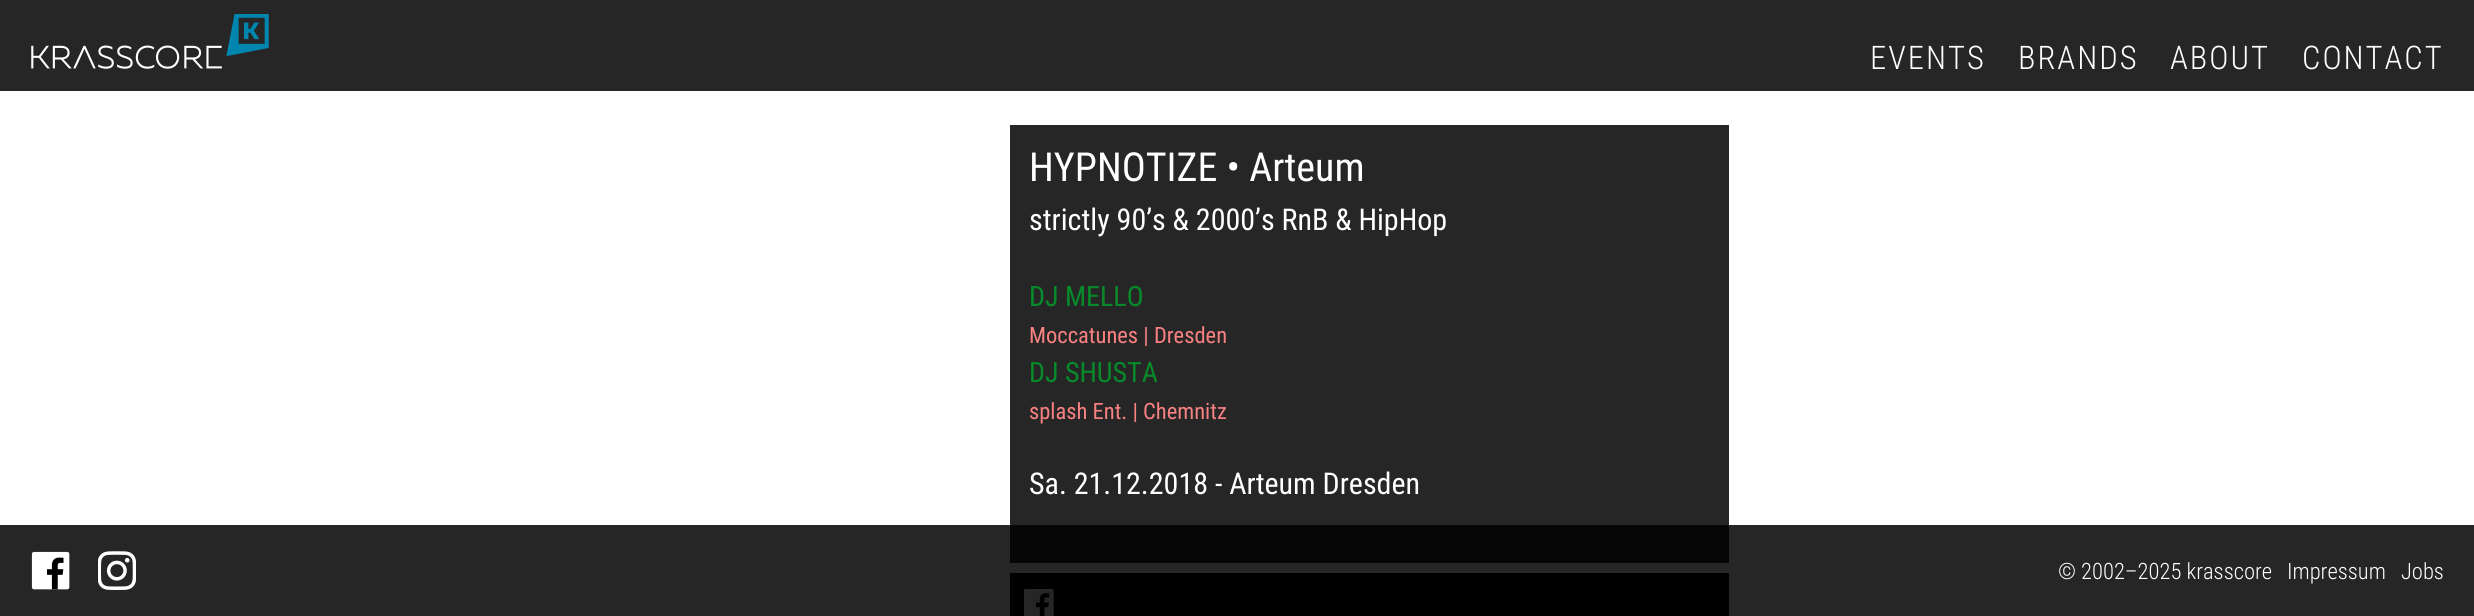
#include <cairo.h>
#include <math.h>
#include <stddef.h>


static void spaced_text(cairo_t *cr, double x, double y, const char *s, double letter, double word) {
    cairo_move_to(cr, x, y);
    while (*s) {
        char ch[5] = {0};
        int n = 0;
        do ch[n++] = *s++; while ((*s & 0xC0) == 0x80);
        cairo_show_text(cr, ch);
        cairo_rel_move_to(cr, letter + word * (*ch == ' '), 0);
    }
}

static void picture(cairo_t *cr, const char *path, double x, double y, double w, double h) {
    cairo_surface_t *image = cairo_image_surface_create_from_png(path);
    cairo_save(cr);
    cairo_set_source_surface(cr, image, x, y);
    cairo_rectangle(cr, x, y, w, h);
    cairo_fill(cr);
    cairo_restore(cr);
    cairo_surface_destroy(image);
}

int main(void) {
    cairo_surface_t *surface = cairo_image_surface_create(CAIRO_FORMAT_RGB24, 2474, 616);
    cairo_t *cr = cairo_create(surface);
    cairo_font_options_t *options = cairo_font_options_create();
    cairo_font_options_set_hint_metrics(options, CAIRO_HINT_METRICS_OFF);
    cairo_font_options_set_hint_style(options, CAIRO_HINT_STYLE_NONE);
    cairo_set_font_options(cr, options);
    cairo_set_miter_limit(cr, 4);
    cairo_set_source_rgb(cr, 1, 1, 1);
    cairo_paint(cr);
    cairo_set_source_rgb(cr, 0.149, 0.149, 0.149);
    cairo_rectangle(cr, 0, 0, 2474, 91);
    cairo_fill(cr);
    picture(cr, "img1.png", 31, 14, 238, 55);
    cairo_select_font_face(cr, "Roboto Condensed Light", CAIRO_FONT_SLANT_NORMAL, CAIRO_FONT_WEIGHT_NORMAL);
    cairo_set_font_size(cr, 32.5);
    cairo_set_source_rgb(cr, 1, 1, 1);
    spaced_text(cr, 1870, 69, "EVENTS", 2, 0);
    spaced_text(cr, 2018, 69, "BRANDS", 2, 0);
    spaced_text(cr, 2170, 69, "ABOUT", 2, 0);
    spaced_text(cr, 2302, 69, "CONTACT", 2, 0);
    cairo_set_source_rgb(cr, 0.149, 0.149, 0.149);
    cairo_rectangle(cr, 1010, 125, 719, 438);
    cairo_fill(cr);
    cairo_select_font_face(cr, "Roboto Condensed", CAIRO_FONT_SLANT_NORMAL, CAIRO_FONT_WEIGHT_NORMAL);
    cairo_set_font_size(cr, 40);
    cairo_set_source_rgb(cr, 1, 1, 1);
    cairo_move_to(cr, 1029, 181);
    cairo_show_text(cr, "HYPNOTIZE • Arteum");
    cairo_set_font_size(cr, 30);
    cairo_move_to(cr, 1029, 230);
    cairo_show_text(cr, "strictly 90’s & 2000’s RnB & HipHop");
    cairo_set_font_size(cr, 28);
    cairo_set_source_rgb(cr, 0.031, 0.541, 0.161);
    cairo_move_to(cr, 1029, 306);
    cairo_show_text(cr, "DJ MELLO");
    cairo_set_font_size(cr, 22.5);
    cairo_set_source_rgb(cr, 0.969, 0.506, 0.506);
    cairo_move_to(cr, 1029, 343);
    cairo_show_text(cr, "Moccatunes | Dresden");
    cairo_set_font_size(cr, 28);
    cairo_set_source_rgb(cr, 0.031, 0.541, 0.161);
    cairo_move_to(cr, 1029, 382);
    cairo_show_text(cr, "DJ SHUSTA");
    cairo_set_font_size(cr, 22.5);
    cairo_set_source_rgb(cr, 0.969, 0.506, 0.506);
    cairo_move_to(cr, 1029, 419);
    cairo_show_text(cr, "splash Ent. | Chemnitz");
    cairo_set_font_size(cr, 30);
    cairo_set_source_rgb(cr, 1, 1, 1);
    cairo_move_to(cr, 1029, 494);
    cairo_show_text(cr, "Sa. 21.12.2018 - Arteum Dresden");
    cairo_set_source_rgb(cr, 0, 0, 0);
    cairo_rectangle(cr, 1010, 573, 719, 43);
    cairo_fill(cr);
    picture(cr, "img2.png", 1024, 589, 30, 27);
    cairo_set_source_rgba(cr, 0, 0, 0, 0.85);
    cairo_rectangle(cr, 0, 525, 2474, 91);
    cairo_fill(cr);
    picture(cr, "img3.png", 31, 551, 39, 39);
    picture(cr, "img4.png", 98, 551, 38, 39);
    cairo_select_font_face(cr, "Roboto Condensed Light", CAIRO_FONT_SLANT_NORMAL, CAIRO_FONT_WEIGHT_NORMAL);
    cairo_set_font_size(cr, 22.5);
    cairo_set_source_rgb(cr, 1, 1, 1);
    cairo_move_to(cr, 2058, 579);
    cairo_show_text(cr, "© 2002–2025 krasscore");
    cairo_move_to(cr, 2287, 579);
    cairo_show_text(cr, "Impressum");
    cairo_move_to(cr, 2401, 579);
    cairo_show_text(cr, "Jobs");
    cairo_surface_write_to_png(surface, "page.png");
    cairo_font_options_destroy(options);
    cairo_destroy(cr);
    cairo_surface_destroy(surface);
    return 0;
}
